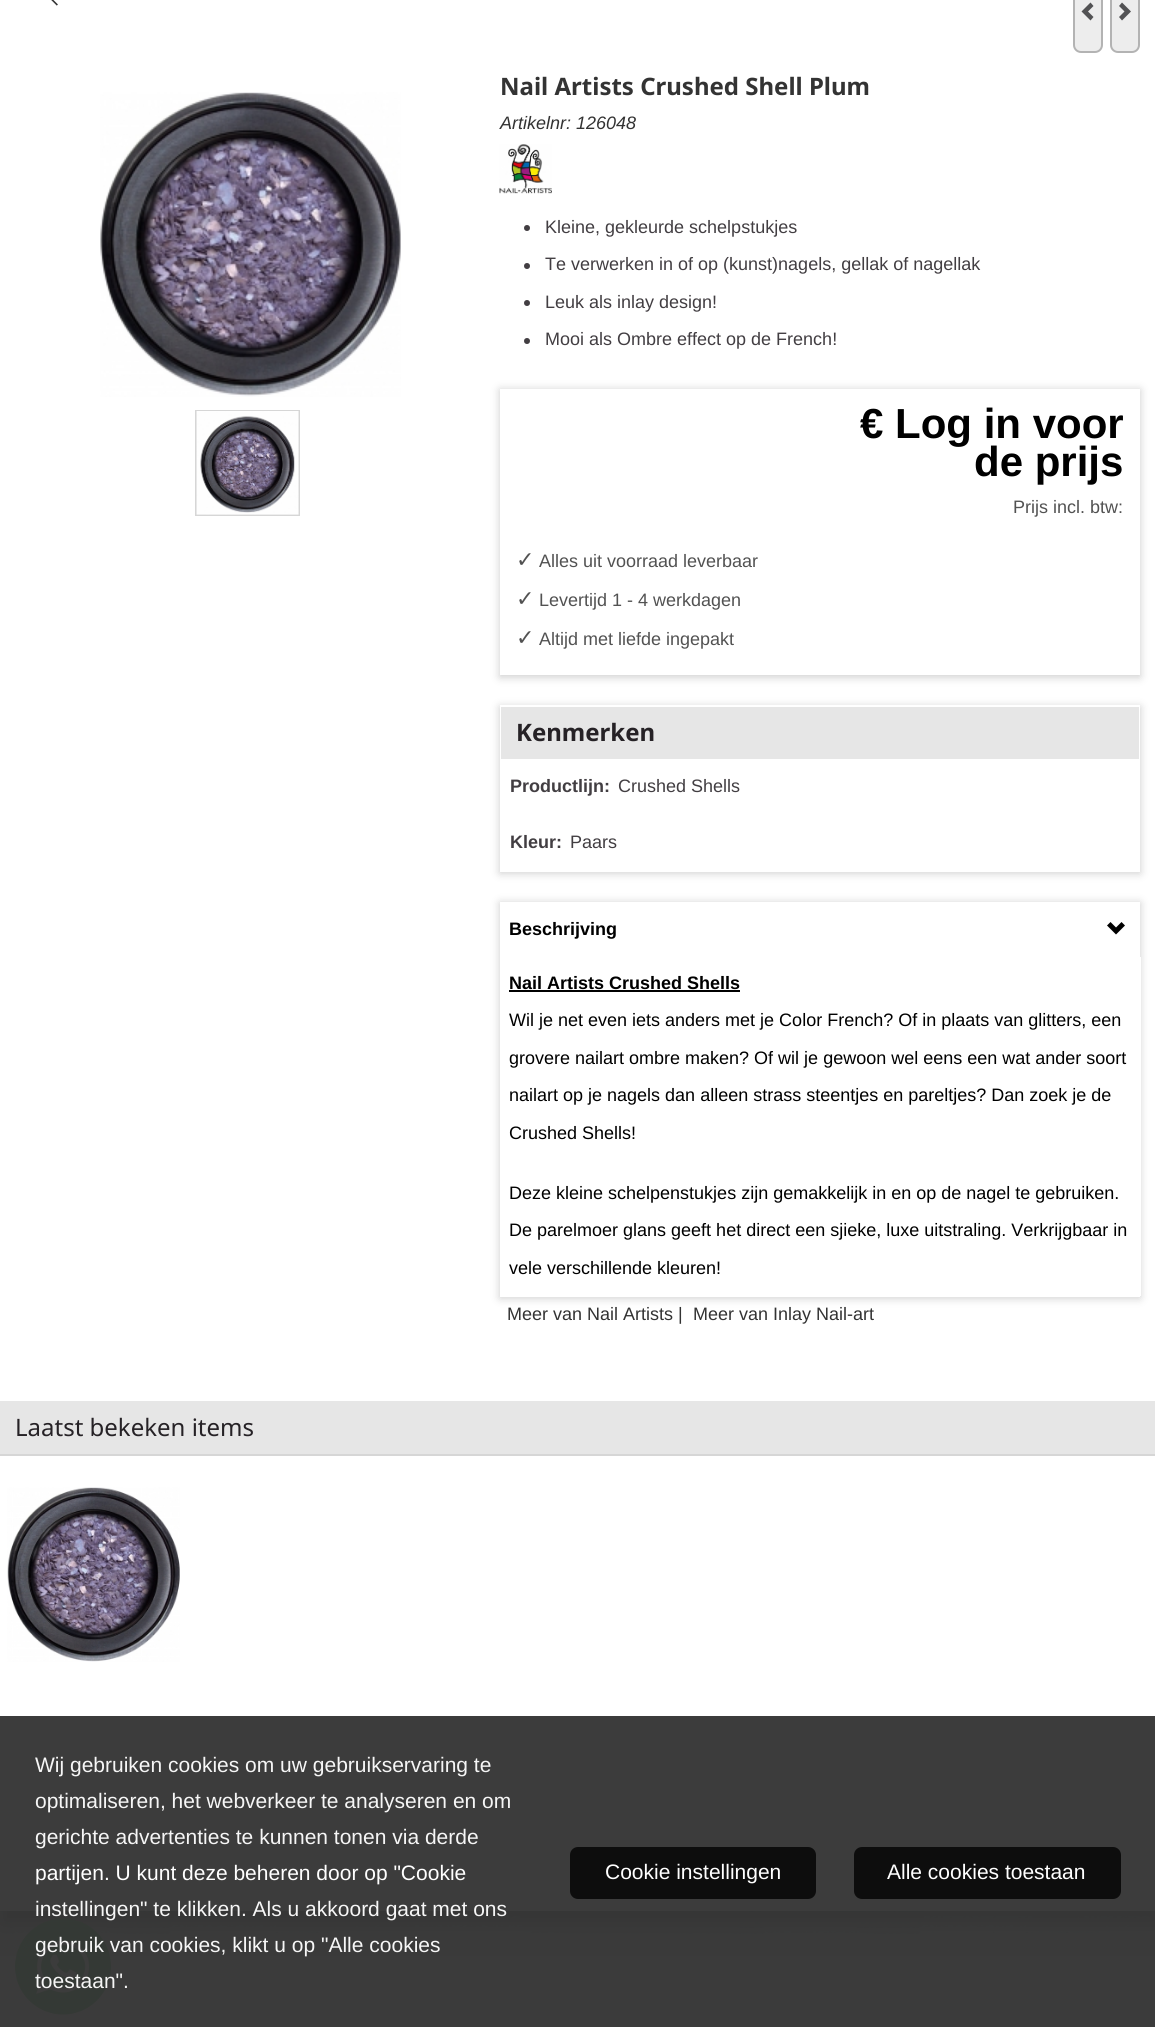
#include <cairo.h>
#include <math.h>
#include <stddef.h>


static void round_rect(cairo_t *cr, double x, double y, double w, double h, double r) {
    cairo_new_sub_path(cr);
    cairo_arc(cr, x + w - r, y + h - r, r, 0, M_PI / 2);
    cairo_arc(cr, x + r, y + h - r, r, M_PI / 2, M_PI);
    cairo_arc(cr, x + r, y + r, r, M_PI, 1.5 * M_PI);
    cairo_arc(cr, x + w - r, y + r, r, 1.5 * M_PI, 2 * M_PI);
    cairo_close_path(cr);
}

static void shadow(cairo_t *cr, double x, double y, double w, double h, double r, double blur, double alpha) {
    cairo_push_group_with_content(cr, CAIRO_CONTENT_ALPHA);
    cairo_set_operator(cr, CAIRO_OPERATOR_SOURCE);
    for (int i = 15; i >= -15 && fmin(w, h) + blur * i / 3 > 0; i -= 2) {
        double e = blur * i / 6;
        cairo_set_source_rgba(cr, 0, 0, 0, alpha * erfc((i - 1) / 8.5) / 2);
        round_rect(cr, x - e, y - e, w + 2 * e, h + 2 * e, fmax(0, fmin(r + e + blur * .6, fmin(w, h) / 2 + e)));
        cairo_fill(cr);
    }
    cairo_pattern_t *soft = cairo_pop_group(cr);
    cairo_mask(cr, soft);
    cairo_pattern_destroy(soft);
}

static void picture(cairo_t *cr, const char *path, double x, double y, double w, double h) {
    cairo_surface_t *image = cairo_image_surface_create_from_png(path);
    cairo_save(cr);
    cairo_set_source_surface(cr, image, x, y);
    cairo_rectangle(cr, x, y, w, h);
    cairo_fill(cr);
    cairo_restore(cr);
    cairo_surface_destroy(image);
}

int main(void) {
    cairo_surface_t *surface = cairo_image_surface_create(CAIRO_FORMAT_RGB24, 1155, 2027);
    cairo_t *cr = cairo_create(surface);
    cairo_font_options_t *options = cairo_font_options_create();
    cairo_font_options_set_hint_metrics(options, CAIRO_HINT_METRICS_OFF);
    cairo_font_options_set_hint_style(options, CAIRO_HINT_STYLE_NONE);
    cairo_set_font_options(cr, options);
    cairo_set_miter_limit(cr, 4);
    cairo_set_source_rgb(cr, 1, 1, 1);
    cairo_paint(cr);
    picture(cr, "img1.png", 0, 1911, 1155, 45);
    cairo_set_source_rgb(cr, 0, 0, 0);
    shadow(cr, 2, -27, 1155, 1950, 0, 9, 0.5);
    cairo_set_source_rgb(cr, 1, 1, 1);
    cairo_rectangle(cr, 0, 0, 1155, 1911);
    cairo_fill(cr);
    picture(cr, "img2.png", 51, 0, 7, 6);
    cairo_set_source_rgb(cr, 0.929, 0.929, 0.929);
    round_rect(cr, 1074, -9, 28, 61, 7);
    cairo_fill_preserve(cr);
    cairo_set_source_rgb(cr, 0.702, 0.702, 0.702);
    cairo_stroke(cr);
    cairo_set_source_rgb(cr, 0.322, 0.322, 0.329);
    cairo_new_path(cr);
    cairo_move_to(cr, 1090.5, 20.5);
    cairo_line_to(cr, 1093.5, 17);
    cairo_line_to(cr, 1088, 11.5);
    cairo_line_to(cr, 1093.5, 6);
    cairo_line_to(cr, 1090.5, 2.5);
    cairo_line_to(cr, 1081.5, 11.5);
    cairo_close_path(cr);
    cairo_fill(cr);
    cairo_set_source_rgb(cr, 0.929, 0.929, 0.929);
    round_rect(cr, 1111, -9, 28, 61, 7);
    cairo_fill_preserve(cr);
    cairo_set_source_rgb(cr, 0.702, 0.702, 0.702);
    cairo_stroke(cr);
    cairo_set_source_rgb(cr, 0.322, 0.322, 0.329);
    cairo_new_path(cr);
    cairo_move_to(cr, 1122, 2.5);
    cairo_line_to(cr, 1119, 6);
    cairo_line_to(cr, 1124.5, 11.5);
    cairo_line_to(cr, 1119, 17);
    cairo_line_to(cr, 1122, 20.5);
    cairo_line_to(cr, 1131, 11.5);
    cairo_close_path(cr);
    cairo_fill(cr);
    picture(cr, "img3.png", 100, 92, 301, 305);
    cairo_rectangle(cr, 196, 411, 103, 104);
    cairo_set_source_rgb(cr, 0.839, 0.839, 0.839);
    cairo_stroke(cr);
    picture(cr, "img4.png", 196, 411, 103, 104);
    cairo_select_font_face(cr, "Noto Sans", CAIRO_FONT_SLANT_NORMAL, CAIRO_FONT_WEIGHT_BOLD);
    cairo_set_font_size(cr, 24);
    cairo_set_source_rgb(cr, 0.2, 0.2, 0.2);
    cairo_move_to(cr, 500, 95);
    cairo_show_text(cr, "Nail Artists Crushed Shell Plum");
    cairo_select_font_face(cr, "Liberation Sans", CAIRO_FONT_SLANT_ITALIC, CAIRO_FONT_WEIGHT_NORMAL);
    cairo_set_font_size(cr, 18);
    cairo_move_to(cr, 500, 129);
    cairo_show_text(cr, "Artikelnr: 126048");
    picture(cr, "img5.png", 499, 144, 53, 50);
    cairo_set_source_rgb(cr, 0.259, 0.243, 0.259);
    cairo_arc(cr, 527, 228, 3, 0, 2 * M_PI);
    cairo_fill(cr);
    cairo_select_font_face(cr, "Liberation Sans", CAIRO_FONT_SLANT_NORMAL, CAIRO_FONT_WEIGHT_NORMAL);
    cairo_move_to(cr, 545, 233);
    cairo_show_text(cr, "Kleine, gekleurde schelpstukjes");
    cairo_new_path(cr);
    cairo_arc(cr, 527, 266, 3, 0, 2 * M_PI);
    cairo_fill(cr);
    cairo_move_to(cr, 545, 270);
    cairo_show_text(cr, "Te verwerken in of op (kunst)nagels, gellak of nagellak");
    cairo_new_path(cr);
    cairo_arc(cr, 527, 303, 3, 0, 2 * M_PI);
    cairo_fill(cr);
    cairo_move_to(cr, 545, 308);
    cairo_show_text(cr, "Leuk als inlay design!");
    cairo_new_path(cr);
    cairo_arc(cr, 527, 341, 3, 0, 2 * M_PI);
    cairo_fill(cr);
    cairo_move_to(cr, 545, 345);
    cairo_show_text(cr, "Mooi als Ombre effect op de French!");
    cairo_save(cr);
    cairo_set_fill_rule(cr, CAIRO_FILL_RULE_EVEN_ODD);
    cairo_new_path(cr);
    cairo_move_to(cr, 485, 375);
    cairo_line_to(cr, 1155, 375);
    cairo_line_to(cr, 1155, 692);
    cairo_line_to(cr, 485, 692);
    cairo_close_path(cr);
    cairo_move_to(cr, 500, 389);
    cairo_line_to(cr, 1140, 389);
    cairo_line_to(cr, 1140, 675);
    cairo_line_to(cr, 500, 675);
    cairo_close_path(cr);
    cairo_clip(cr);
    cairo_set_source_rgb(cr, 0.8, 0.8, 0.8);
    shadow(cr, 500, 390, 640, 287, 0, 4.5, 1);
    cairo_restore(cr);
    cairo_select_font_face(cr, "Liberation Sans", CAIRO_FONT_SLANT_NORMAL, CAIRO_FONT_WEIGHT_BOLD);
    cairo_set_font_size(cr, 42);
    cairo_set_source_rgb(cr, 0, 0, 0);
    cairo_move_to(cr, 860, 438);
    cairo_show_text(cr, "€ Log in voor");
    cairo_move_to(cr, 974, 476);
    cairo_show_text(cr, "de prijs");
    cairo_select_font_face(cr, "Liberation Sans", CAIRO_FONT_SLANT_NORMAL, CAIRO_FONT_WEIGHT_NORMAL);
    cairo_set_font_size(cr, 18);
    cairo_set_source_rgb(cr, 0.322, 0.322, 0.322);
    cairo_move_to(cr, 1013, 513);
    cairo_show_text(cr, "Prijs incl. btw:");
    cairo_select_font_face(cr, "DejaVu Sans", CAIRO_FONT_SLANT_NORMAL, CAIRO_FONT_WEIGHT_NORMAL);
    cairo_set_font_size(cr, 22);
    cairo_move_to(cr, 516, 567);
    cairo_show_text(cr, "✓");
    cairo_select_font_face(cr, "Liberation Sans", CAIRO_FONT_SLANT_NORMAL, CAIRO_FONT_WEIGHT_NORMAL);
    cairo_set_font_size(cr, 18);
    cairo_move_to(cr, 539, 567);
    cairo_show_text(cr, "Alles uit voorraad leverbaar");
    cairo_select_font_face(cr, "DejaVu Sans", CAIRO_FONT_SLANT_NORMAL, CAIRO_FONT_WEIGHT_NORMAL);
    cairo_set_font_size(cr, 22);
    cairo_move_to(cr, 516, 606);
    cairo_show_text(cr, "✓");
    cairo_select_font_face(cr, "Liberation Sans", CAIRO_FONT_SLANT_NORMAL, CAIRO_FONT_WEIGHT_NORMAL);
    cairo_set_font_size(cr, 18);
    cairo_move_to(cr, 539, 606);
    cairo_show_text(cr, "Levertijd 1 - 4 werkdagen");
    cairo_select_font_face(cr, "DejaVu Sans", CAIRO_FONT_SLANT_NORMAL, CAIRO_FONT_WEIGHT_NORMAL);
    cairo_set_font_size(cr, 22);
    cairo_move_to(cr, 516, 645);
    cairo_show_text(cr, "✓");
    cairo_select_font_face(cr, "Liberation Sans", CAIRO_FONT_SLANT_NORMAL, CAIRO_FONT_WEIGHT_NORMAL);
    cairo_set_font_size(cr, 18);
    cairo_move_to(cr, 539, 645);
    cairo_show_text(cr, "Altijd met liefde ingepakt");
    cairo_set_source_rgb(cr, 0.8, 0.8, 0.8);
    shadow(cr, 500, 707, 640, 166, 0, 4.5, 1);
    cairo_set_source_rgb(cr, 1, 1, 1);
    cairo_rectangle(cr, 500, 705, 640, 167);
    cairo_fill(cr);
    cairo_set_source_rgb(cr, 0.902, 0.902, 0.902);
    cairo_rectangle(cr, 501, 707, 638, 52);
    cairo_fill(cr);
    cairo_select_font_face(cr, "Noto Sans", CAIRO_FONT_SLANT_NORMAL, CAIRO_FONT_WEIGHT_BOLD);
    cairo_set_font_size(cr, 24);
    cairo_set_source_rgb(cr, 0.149, 0.133, 0.149);
    cairo_move_to(cr, 516, 741);
    cairo_show_text(cr, "Kenmerken");
    cairo_select_font_face(cr, "Liberation Sans", CAIRO_FONT_SLANT_NORMAL, CAIRO_FONT_WEIGHT_BOLD);
    cairo_set_font_size(cr, 18);
    cairo_set_source_rgb(cr, 0.259, 0.243, 0.259);
    cairo_move_to(cr, 510, 792);
    cairo_show_text(cr, "Productlijn:");
    cairo_select_font_face(cr, "Liberation Sans", CAIRO_FONT_SLANT_NORMAL, CAIRO_FONT_WEIGHT_NORMAL);
    cairo_move_to(cr, 618, 792);
    cairo_show_text(cr, "Crushed Shells");
    cairo_select_font_face(cr, "Liberation Sans", CAIRO_FONT_SLANT_NORMAL, CAIRO_FONT_WEIGHT_BOLD);
    cairo_move_to(cr, 510, 848);
    cairo_show_text(cr, "Kleur:");
    cairo_select_font_face(cr, "Liberation Sans", CAIRO_FONT_SLANT_NORMAL, CAIRO_FONT_WEIGHT_NORMAL);
    cairo_move_to(cr, 570, 848);
    cairo_show_text(cr, "Paars");
    cairo_save(cr);
    cairo_set_fill_rule(cr, CAIRO_FILL_RULE_EVEN_ODD);
    cairo_new_path(cr);
    cairo_move_to(cr, 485, 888);
    cairo_line_to(cr, 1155, 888);
    cairo_line_to(cr, 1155, 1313);
    cairo_line_to(cr, 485, 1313);
    cairo_close_path(cr);
    cairo_move_to(cr, 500, 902);
    cairo_line_to(cr, 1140, 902);
    cairo_line_to(cr, 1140, 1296);
    cairo_line_to(cr, 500, 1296);
    cairo_close_path(cr);
    cairo_clip(cr);
    cairo_set_source_rgb(cr, 0.8, 0.8, 0.8);
    shadow(cr, 500, 903, 640, 395, 0, 4.5, 1);
    cairo_restore(cr);
    cairo_select_font_face(cr, "Liberation Sans", CAIRO_FONT_SLANT_NORMAL, CAIRO_FONT_WEIGHT_BOLD);
    cairo_set_source_rgb(cr, 0, 0, 0);
    cairo_move_to(cr, 509, 935);
    cairo_show_text(cr, "Beschrijving");
    cairo_new_path(cr);
    cairo_move_to(cr, 1125, 925.5);
    cairo_line_to(cr, 1121.5, 922);
    cairo_line_to(cr, 1116, 927.5);
    cairo_line_to(cr, 1110.5, 922);
    cairo_line_to(cr, 1107, 925.5);
    cairo_line_to(cr, 1116, 934.5);
    cairo_close_path(cr);
    cairo_fill(cr);
    cairo_set_source_rgb(cr, 1, 1, 1);
    cairo_rectangle(cr, 1140, 957, 1, 339);
    cairo_fill(cr);
    cairo_rectangle(cr, 500, 1296, 640, 1);
    cairo_fill(cr);
    cairo_set_source_rgb(cr, 0, 0, 0);
    cairo_move_to(cr, 509, 989);
    cairo_show_text(cr, "Nail Artists Crushed Shells");
    cairo_rectangle(cr, 509, 990, 231, 2);
    cairo_fill(cr);
    cairo_select_font_face(cr, "Liberation Sans", CAIRO_FONT_SLANT_NORMAL, CAIRO_FONT_WEIGHT_NORMAL);
    cairo_move_to(cr, 509, 1026);
    cairo_show_text(cr, "Wil je net even iets anders met je Color French? Of in plaats van glitters, een");
    cairo_move_to(cr, 509, 1064);
    cairo_show_text(cr, "grovere nailart ombre maken? Of wil je gewoon wel eens een wat ander soort");
    cairo_move_to(cr, 509, 1101);
    cairo_show_text(cr, "nailart op je nagels dan alleen strass steentjes en pareltjes? Dan zoek je de");
    cairo_move_to(cr, 509, 1139);
    cairo_show_text(cr, "Crushed Shells!");
    cairo_move_to(cr, 509, 1199);
    cairo_show_text(cr, "Deze kleine schelpenstukjes zijn gemakkelijk in en op de nagel te gebruiken.");
    cairo_move_to(cr, 509, 1236);
    cairo_show_text(cr, "De parelmoer glans geeft het direct een sjieke, luxe uitstraling. Verkrijgbaar in");
    cairo_move_to(cr, 509, 1274);
    cairo_show_text(cr, "vele verschillende kleuren!");
    cairo_set_source_rgb(cr, 0.2, 0.2, 0.2);
    cairo_move_to(cr, 507, 1320);
    cairo_show_text(cr, "Meer van Nail Artists |");
    cairo_move_to(cr, 693, 1320);
    cairo_show_text(cr, "Meer van Inlay Nail-art");
    cairo_set_source_rgb(cr, 0.902, 0.902, 0.902);
    cairo_rectangle(cr, 0, 1401, 1155, 53);
    cairo_fill(cr);
    cairo_select_font_face(cr, "Noto Sans", CAIRO_FONT_SLANT_NORMAL, CAIRO_FONT_WEIGHT_NORMAL);
    cairo_set_font_size(cr, 24);
    cairo_set_source_rgb(cr, 0.149, 0.133, 0.149);
    cairo_move_to(cr, 15, 1436);
    cairo_show_text(cr, "Laatst bekeken items");
    cairo_set_source_rgb(cr, 0.839, 0.839, 0.839);
    cairo_rectangle(cr, 0, 1454, 1155, 2);
    cairo_fill(cr);
    picture(cr, "img6.png", 7, 1487, 173, 175);
    cairo_set_source_rgb(cr, 0.953, 0.953, 0.953);
    cairo_rectangle(cr, 0, 1956, 1155, 71);
    cairo_fill(cr);
    picture(cr, "img7.png", 15, 1918, 96, 97);
    cairo_set_source_rgba(cr, 0.2, 0.2, 0.2, 0.95);
    cairo_rectangle(cr, 0, 1716, 1155, 311);
    cairo_fill(cr);
    cairo_select_font_face(cr, "Liberation Sans", CAIRO_FONT_SLANT_NORMAL, CAIRO_FONT_WEIGHT_NORMAL);
    cairo_set_font_size(cr, 21);
    cairo_set_source_rgb(cr, 0.961, 0.961, 0.961);
    cairo_move_to(cr, 35, 1772);
    cairo_show_text(cr, "Wij gebruiken cookies om uw gebruikservaring te");
    cairo_move_to(cr, 35, 1808);
    cairo_show_text(cr, "optimaliseren, het webverkeer te analyseren en om");
    cairo_move_to(cr, 35, 1844);
    cairo_show_text(cr, "gerichte advertenties te kunnen tonen via derde");
    cairo_set_source_rgb(cr, 1, 1, 1);
    cairo_move_to(cr, 35, 1880);
    cairo_show_text(cr, "partijen. U kunt deze beheren door op \"Cookie");
    cairo_set_source_rgb(cr, 0.961, 0.961, 0.961);
    cairo_move_to(cr, 35, 1916);
    cairo_show_text(cr, "instellingen\" te klikken. Als u akkoord gaat met ons");
    cairo_move_to(cr, 35, 1952);
    cairo_show_text(cr, "gebruik van cookies, klikt u op \"Alle cookies");
    cairo_move_to(cr, 35, 1988);
    cairo_show_text(cr, "toestaan\".");
    cairo_set_source_rgb(cr, 0.051, 0.051, 0.051);
    round_rect(cr, 570, 1847, 246, 52, 8);
    cairo_fill(cr);
    cairo_set_source_rgb(cr, 1, 1, 1);
    cairo_move_to(cr, 605, 1879);
    cairo_show_text(cr, "Cookie instellingen");
    cairo_set_source_rgb(cr, 0.051, 0.051, 0.051);
    round_rect(cr, 854, 1847, 267, 52, 8);
    cairo_fill(cr);
    cairo_set_source_rgb(cr, 1, 1, 1);
    cairo_move_to(cr, 887, 1879);
    cairo_show_text(cr, "Alle cookies toestaan");
    cairo_surface_write_to_png(surface, "page.png");
    cairo_font_options_destroy(options);
    cairo_destroy(cr);
    cairo_surface_destroy(surface);
    return 0;
}
